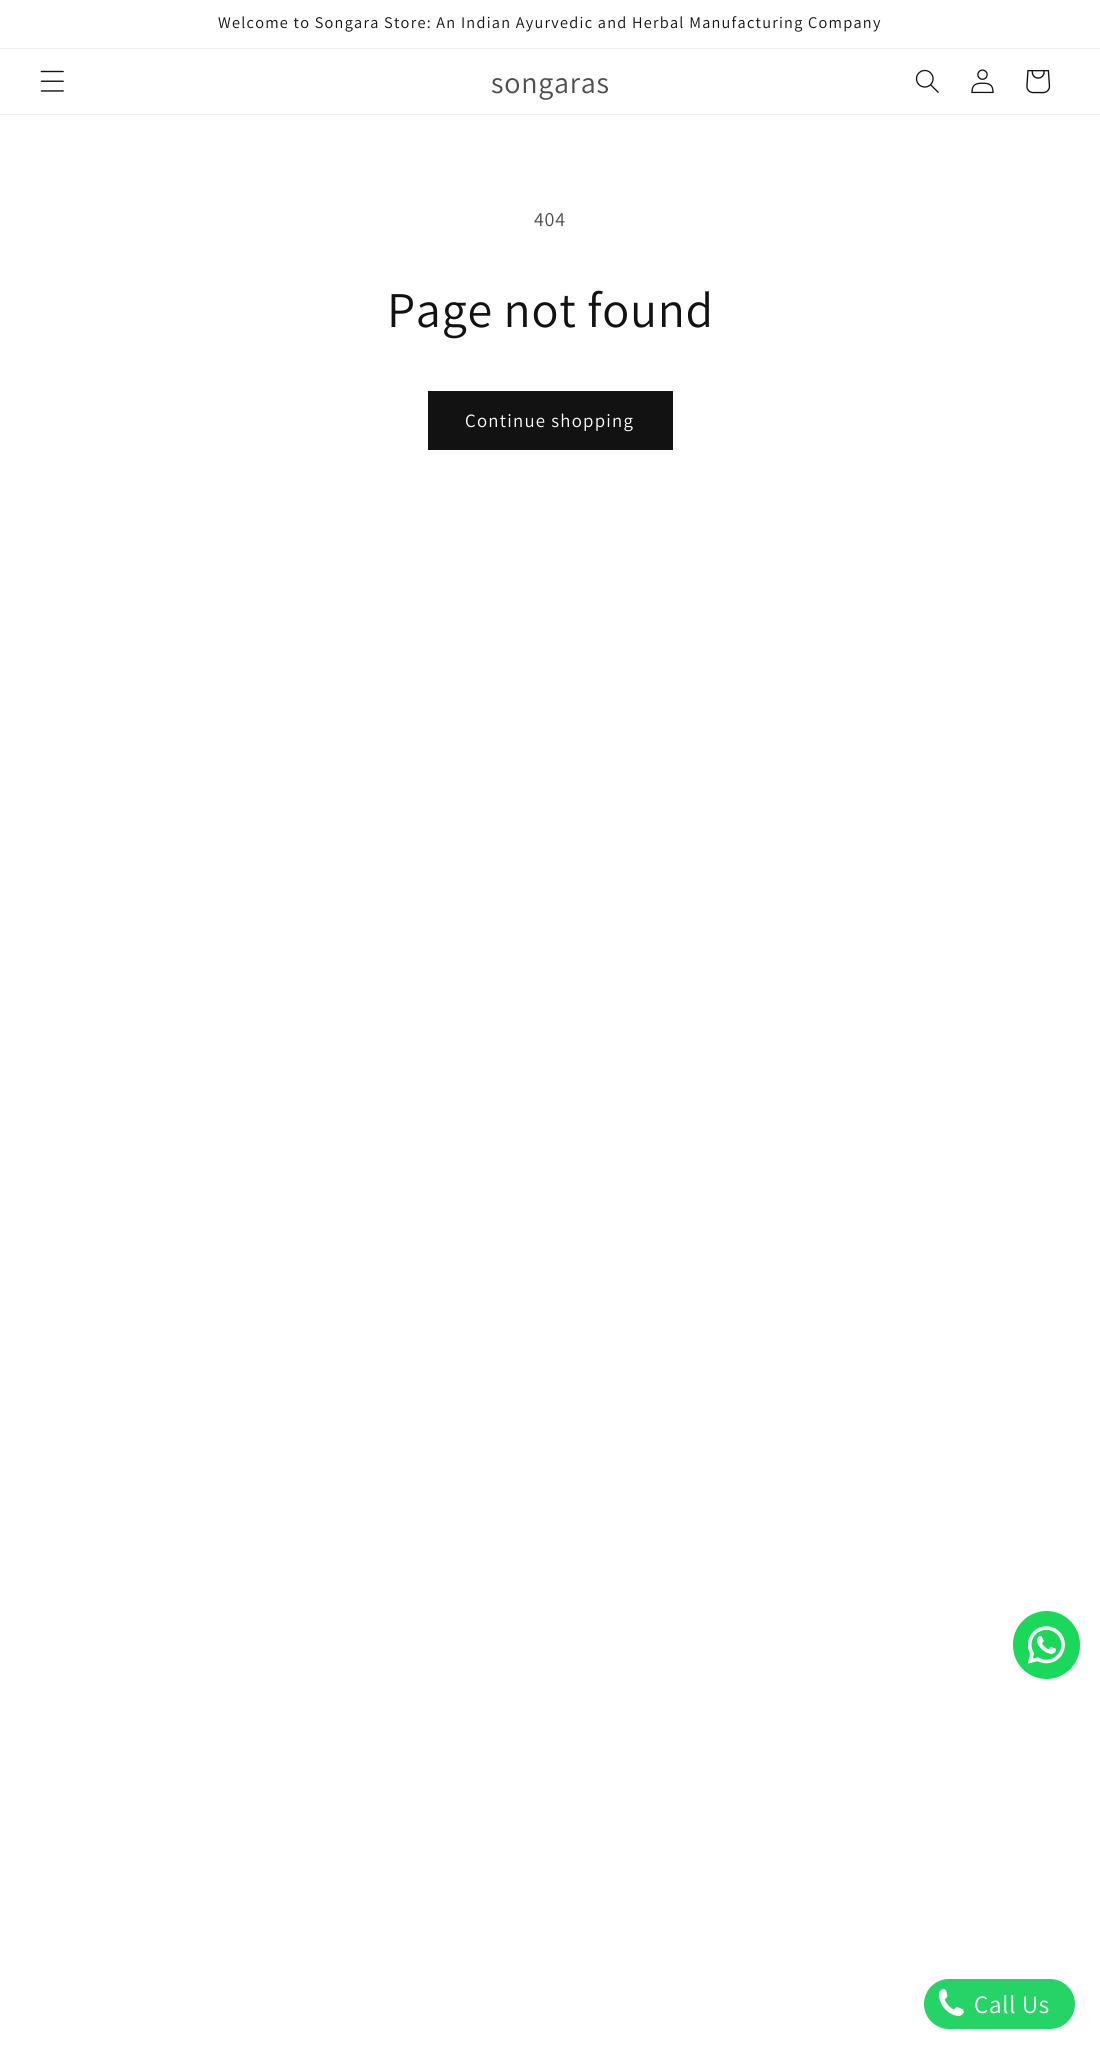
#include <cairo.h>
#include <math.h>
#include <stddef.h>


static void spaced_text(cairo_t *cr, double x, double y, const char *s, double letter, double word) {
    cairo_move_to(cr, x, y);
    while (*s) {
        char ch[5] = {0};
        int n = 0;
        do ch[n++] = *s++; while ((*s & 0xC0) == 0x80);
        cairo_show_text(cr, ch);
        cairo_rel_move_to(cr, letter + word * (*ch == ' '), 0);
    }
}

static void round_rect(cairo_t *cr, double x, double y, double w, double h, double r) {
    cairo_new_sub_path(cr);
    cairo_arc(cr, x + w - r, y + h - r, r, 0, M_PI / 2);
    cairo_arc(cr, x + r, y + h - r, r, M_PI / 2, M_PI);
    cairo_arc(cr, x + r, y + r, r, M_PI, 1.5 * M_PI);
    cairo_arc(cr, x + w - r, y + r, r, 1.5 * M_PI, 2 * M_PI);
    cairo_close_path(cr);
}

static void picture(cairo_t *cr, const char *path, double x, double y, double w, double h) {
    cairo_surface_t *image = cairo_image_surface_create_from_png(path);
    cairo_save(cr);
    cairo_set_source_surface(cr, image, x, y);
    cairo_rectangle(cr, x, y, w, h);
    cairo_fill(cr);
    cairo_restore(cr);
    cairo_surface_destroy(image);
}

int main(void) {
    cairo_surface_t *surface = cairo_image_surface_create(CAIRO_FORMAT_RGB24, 1100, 2053);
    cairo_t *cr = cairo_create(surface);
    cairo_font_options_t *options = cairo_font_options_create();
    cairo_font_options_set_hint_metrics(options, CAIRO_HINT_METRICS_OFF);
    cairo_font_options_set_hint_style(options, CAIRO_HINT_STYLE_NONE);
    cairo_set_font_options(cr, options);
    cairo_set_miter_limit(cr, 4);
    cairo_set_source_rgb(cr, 1, 1, 1);
    cairo_paint(cr);
    cairo_set_source_rgb(cr, 0.925, 0.925, 0.925);
    cairo_rectangle(cr, 0, 48, 1100, 1);
    cairo_fill(cr);
    cairo_select_font_face(cr, "Assistant", CAIRO_FONT_SLANT_NORMAL, CAIRO_FONT_WEIGHT_NORMAL);
    cairo_set_font_size(cr, 16.25);
    cairo_set_source_rgb(cr, 0.071, 0.071, 0.071);
    spaced_text(cr, 218, 28, "Welcome to Songara Store: An Indian Ayurvedic and Herbal Manufacturing Company", 1.25, 0);
    cairo_set_source_rgb(cr, 0.925, 0.925, 0.925);
    cairo_rectangle(cr, 0, 114, 1100, 1);
    cairo_fill(cr);
    picture(cr, "img1.png", 40, 70, 24, 22);
    cairo_set_font_size(cr, 30);
    cairo_set_source_rgb(cr, 0.302, 0.302, 0.302);
    spaced_text(cr, 491, 93, "songaras", 0.75, 0);
    picture(cr, "img2.png", 915, 69, 24, 24);
    picture(cr, "img3.png", 971, 69, 23, 25);
    picture(cr, "img4.png", 1026, 70, 25, 24);
    cairo_set_font_size(cr, 20);
    spaced_text(cr, 534, 226, "404", 0.75, 0);
    cairo_set_font_size(cr, 50);
    cairo_set_source_rgb(cr, 0.071, 0.071, 0.071);
    spaced_text(cr, 387, 327, "Page not found", 0.75, 0);
    cairo_rectangle(cr, 428, 391, 245, 59);
    cairo_fill(cr);
    cairo_set_font_size(cr, 18.75);
    cairo_set_source_rgb(cr, 1, 1, 1);
    spaced_text(cr, 465, 427, "Continue shopping", 1.25, 0);
    cairo_set_source_rgb(cr, 0.102, 0.851, 0.353);
    round_rect(cr, 1013, 1611, 67, 68, 33.5);
    cairo_fill(cr);
    picture(cr, "img5.png", 1028, 1626, 37, 38);
    cairo_set_source_rgb(cr, 0.145, 0.827, 0.4);
    round_rect(cr, 924, 1979, 151, 50, 25);
    cairo_fill(cr);
    picture(cr, "img6.png", 938, 1989, 26, 27);
    cairo_set_font_size(cr, 25);
    cairo_set_source_rgb(cr, 1, 1, 1);
    spaced_text(cr, 974, 2013, "Call Us", 0.75, 0);
    cairo_surface_write_to_png(surface, "page.png");
    cairo_font_options_destroy(options);
    cairo_destroy(cr);
    cairo_surface_destroy(surface);
    return 0;
}
